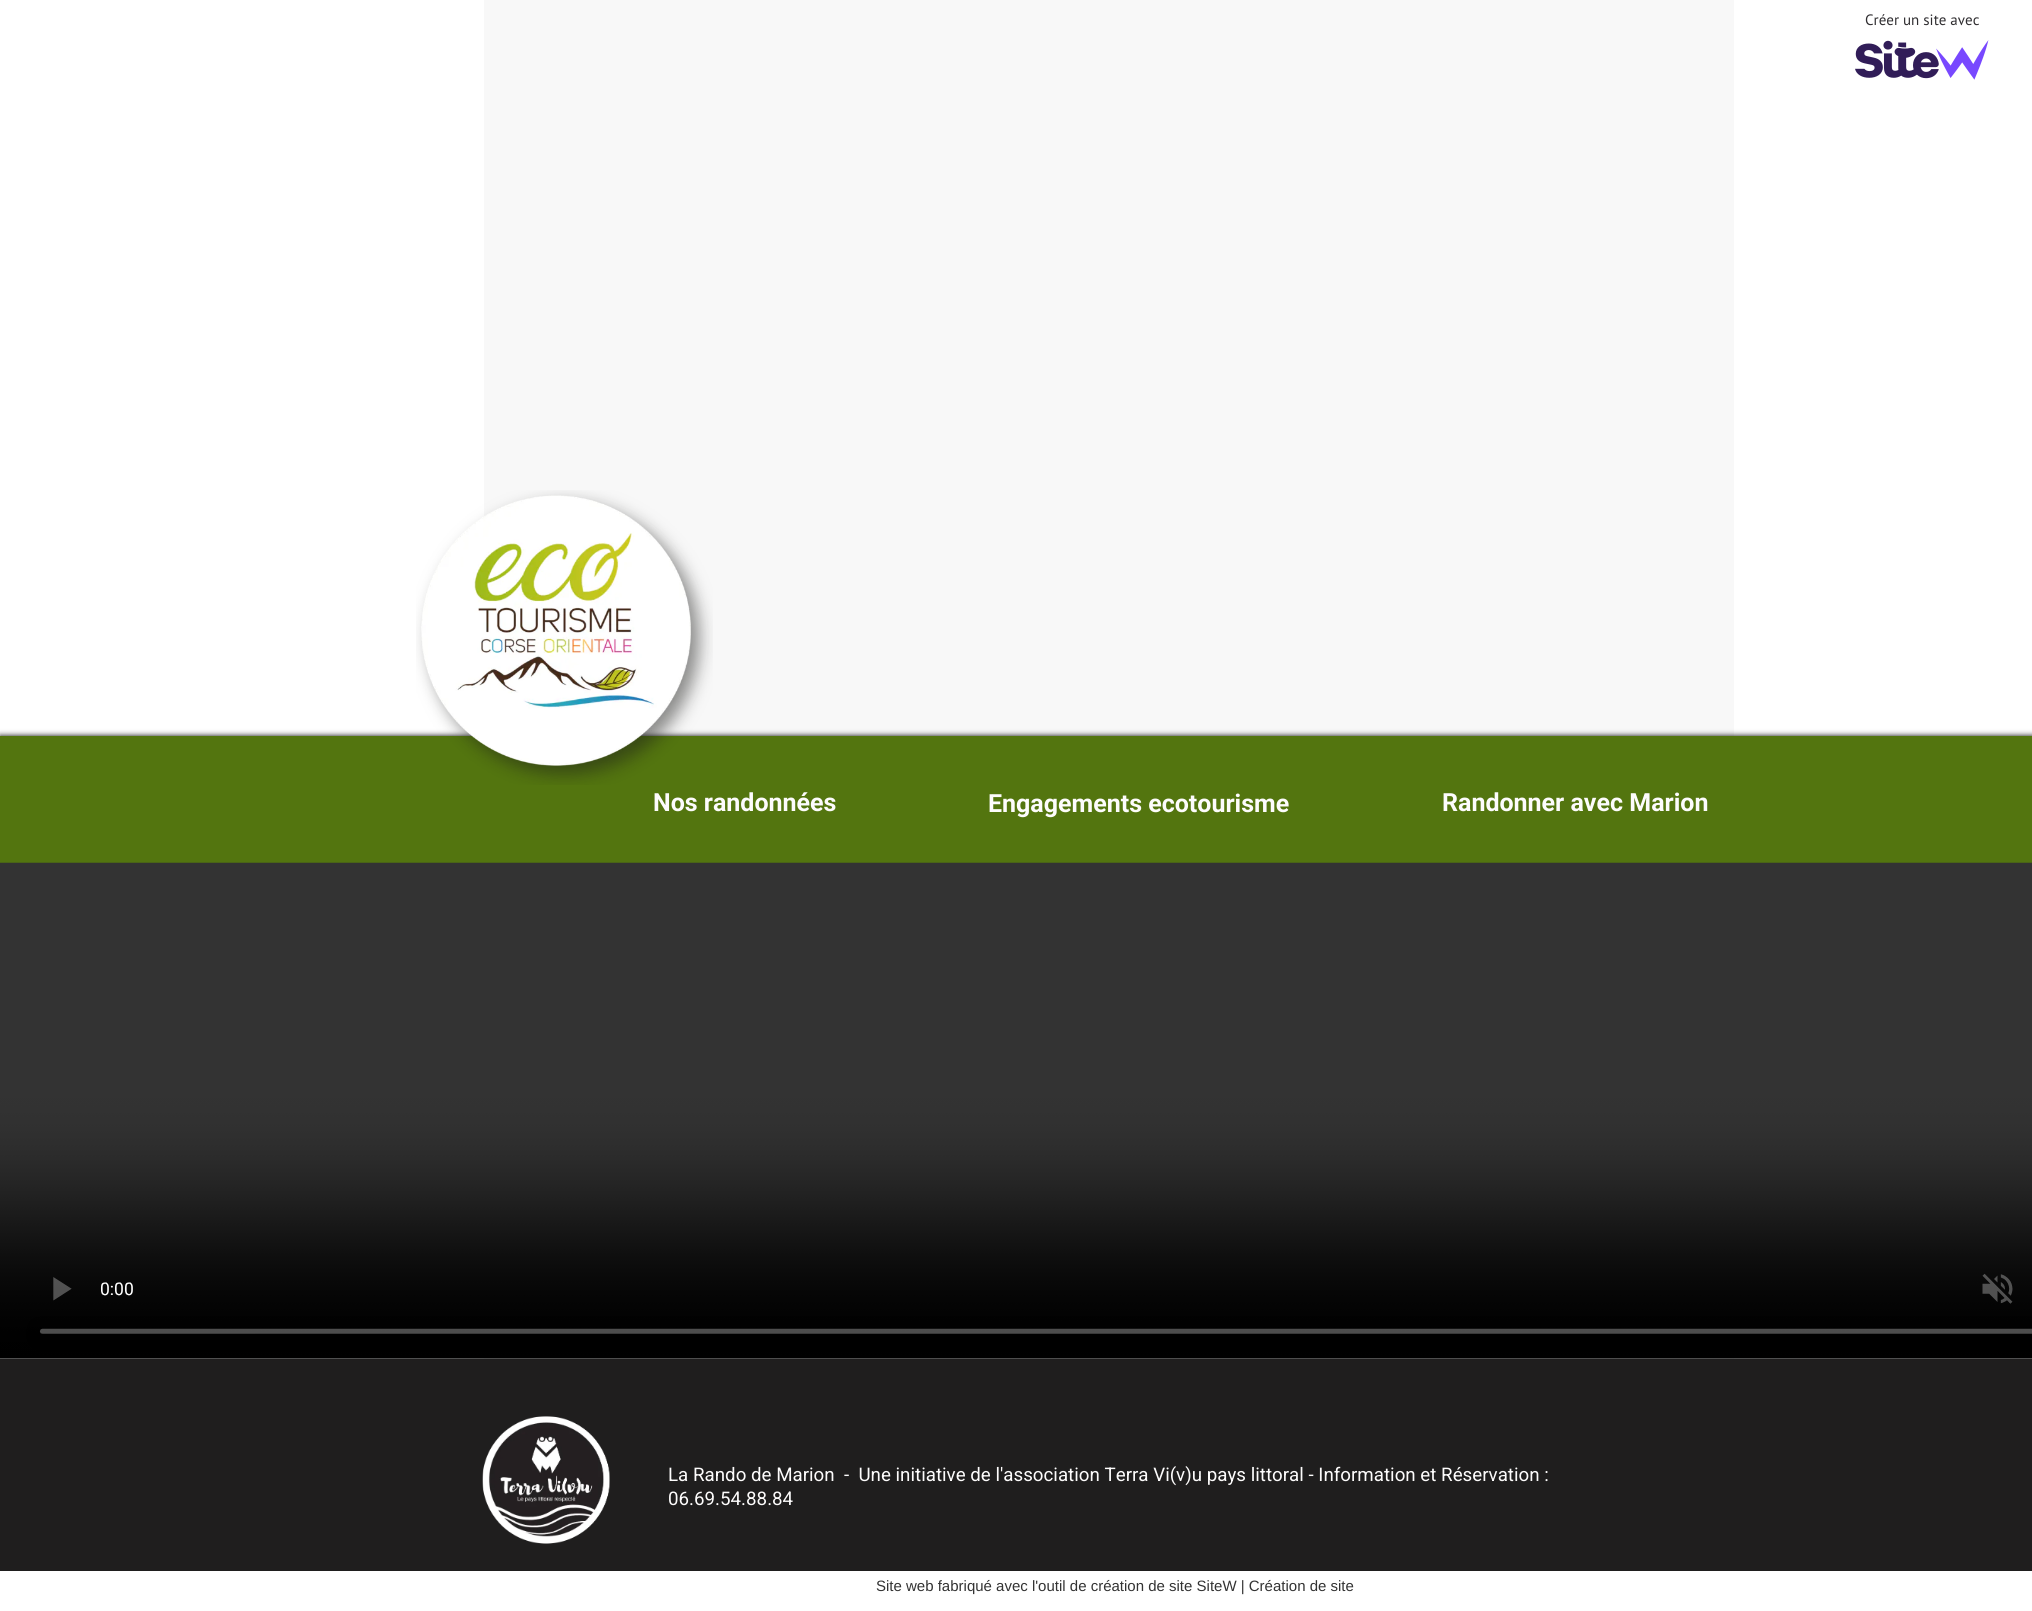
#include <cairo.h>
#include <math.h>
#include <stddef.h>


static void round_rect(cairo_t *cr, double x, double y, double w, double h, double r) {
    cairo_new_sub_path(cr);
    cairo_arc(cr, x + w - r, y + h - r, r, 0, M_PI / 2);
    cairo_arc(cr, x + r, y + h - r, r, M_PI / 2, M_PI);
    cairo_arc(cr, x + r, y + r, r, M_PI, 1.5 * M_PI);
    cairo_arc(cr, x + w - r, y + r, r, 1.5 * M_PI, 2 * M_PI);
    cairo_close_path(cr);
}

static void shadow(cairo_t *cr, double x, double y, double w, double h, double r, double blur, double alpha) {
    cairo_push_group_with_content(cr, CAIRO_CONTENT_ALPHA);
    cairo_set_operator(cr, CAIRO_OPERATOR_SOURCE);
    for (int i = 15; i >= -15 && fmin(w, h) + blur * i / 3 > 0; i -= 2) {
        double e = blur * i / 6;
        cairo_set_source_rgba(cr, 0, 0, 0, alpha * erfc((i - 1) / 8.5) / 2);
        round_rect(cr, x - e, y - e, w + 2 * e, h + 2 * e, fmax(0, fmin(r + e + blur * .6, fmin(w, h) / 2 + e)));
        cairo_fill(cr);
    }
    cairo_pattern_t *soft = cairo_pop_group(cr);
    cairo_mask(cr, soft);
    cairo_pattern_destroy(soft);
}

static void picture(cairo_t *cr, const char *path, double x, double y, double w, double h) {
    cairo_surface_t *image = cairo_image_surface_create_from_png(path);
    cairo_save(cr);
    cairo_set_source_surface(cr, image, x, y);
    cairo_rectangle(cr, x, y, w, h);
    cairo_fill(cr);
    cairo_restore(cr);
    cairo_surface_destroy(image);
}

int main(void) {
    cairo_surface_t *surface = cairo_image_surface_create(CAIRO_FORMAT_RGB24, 2032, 1611);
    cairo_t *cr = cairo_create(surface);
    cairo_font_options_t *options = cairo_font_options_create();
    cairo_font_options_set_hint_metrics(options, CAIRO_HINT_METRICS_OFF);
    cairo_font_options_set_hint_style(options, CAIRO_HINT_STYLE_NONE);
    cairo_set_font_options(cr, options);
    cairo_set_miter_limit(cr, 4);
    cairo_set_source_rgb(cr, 1, 1, 1);
    cairo_paint(cr);
    cairo_set_source_rgb(cr, 0.969, 0.969, 0.969);
    cairo_rectangle(cr, 484, 0, 1250, 1359);
    cairo_fill(cr);
    cairo_select_font_face(cr, "PT Sans", CAIRO_FONT_SLANT_NORMAL, CAIRO_FONT_WEIGHT_NORMAL);
    cairo_set_font_size(cr, 15);
    cairo_set_source_rgb(cr, 0.184, 0.176, 0.188);
    cairo_move_to(cr, 1865, 25);
    cairo_show_text(cr, "Créer un site avec");
    picture(cr, "img1.png", 1855, 40, 134, 40);
    cairo_set_source_rgb(cr, 0, 0, 0);
    shadow(cr, 0, 736, 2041, 128, 0, 3, 1);
    cairo_set_source_rgb(cr, 0.325, 0.459, 0.059);
    cairo_rectangle(cr, 0, 736, 2032, 127);
    cairo_fill(cr);
    picture(cr, "img2.png", 416, 490, 297, 295);
    cairo_select_font_face(cr, "Roboto", CAIRO_FONT_SLANT_NORMAL, CAIRO_FONT_WEIGHT_BOLD);
    cairo_set_font_size(cr, 25);
    cairo_set_source_rgb(cr, 0.992, 0.988, 0.988);
    cairo_move_to(cr, 653, 811);
    cairo_show_text(cr, "Nos randonnées");
    cairo_move_to(cr, 988, 812);
    cairo_show_text(cr, "Engagements ecotourisme");
    cairo_move_to(cr, 1442, 811);
    cairo_show_text(cr, "Randonner avec Marion");
    picture(cr, "img3.png", 0, 862, 2032, 497);
    cairo_set_source_rgb(cr, 0.122, 0.118, 0.118);
    cairo_rectangle(cr, 0, 1359, 2032, 212);
    cairo_fill(cr);
    picture(cr, "img4.png", 482, 1416, 128, 128);
    cairo_select_font_face(cr, "Roboto", CAIRO_FONT_SLANT_NORMAL, CAIRO_FONT_WEIGHT_NORMAL);
    cairo_set_font_size(cr, 18.75);
    cairo_set_source_rgb(cr, 0.992, 0.988, 0.988);
    cairo_move_to(cr, 668, 1481);
    cairo_show_text(cr, "La Rando de Marion  -  Une initiative de l'association Terra Vi(v)u pays littoral - Information et Réservation :");
    cairo_move_to(cr, 668, 1505);
    cairo_show_text(cr, "06.69.54.88.84");
    cairo_select_font_face(cr, "Liberation Sans", CAIRO_FONT_SLANT_NORMAL, CAIRO_FONT_WEIGHT_NORMAL);
    cairo_set_font_size(cr, 15);
    cairo_set_source_rgb(cr, 0.2, 0.2, 0.2);
    cairo_move_to(cr, 876, 1591);
    cairo_show_text(cr, "Site web fabriqué avec l'outil de création de site SiteW | Création de site");
    cairo_surface_write_to_png(surface, "page.png");
    cairo_font_options_destroy(options);
    cairo_destroy(cr);
    cairo_surface_destroy(surface);
    return 0;
}
